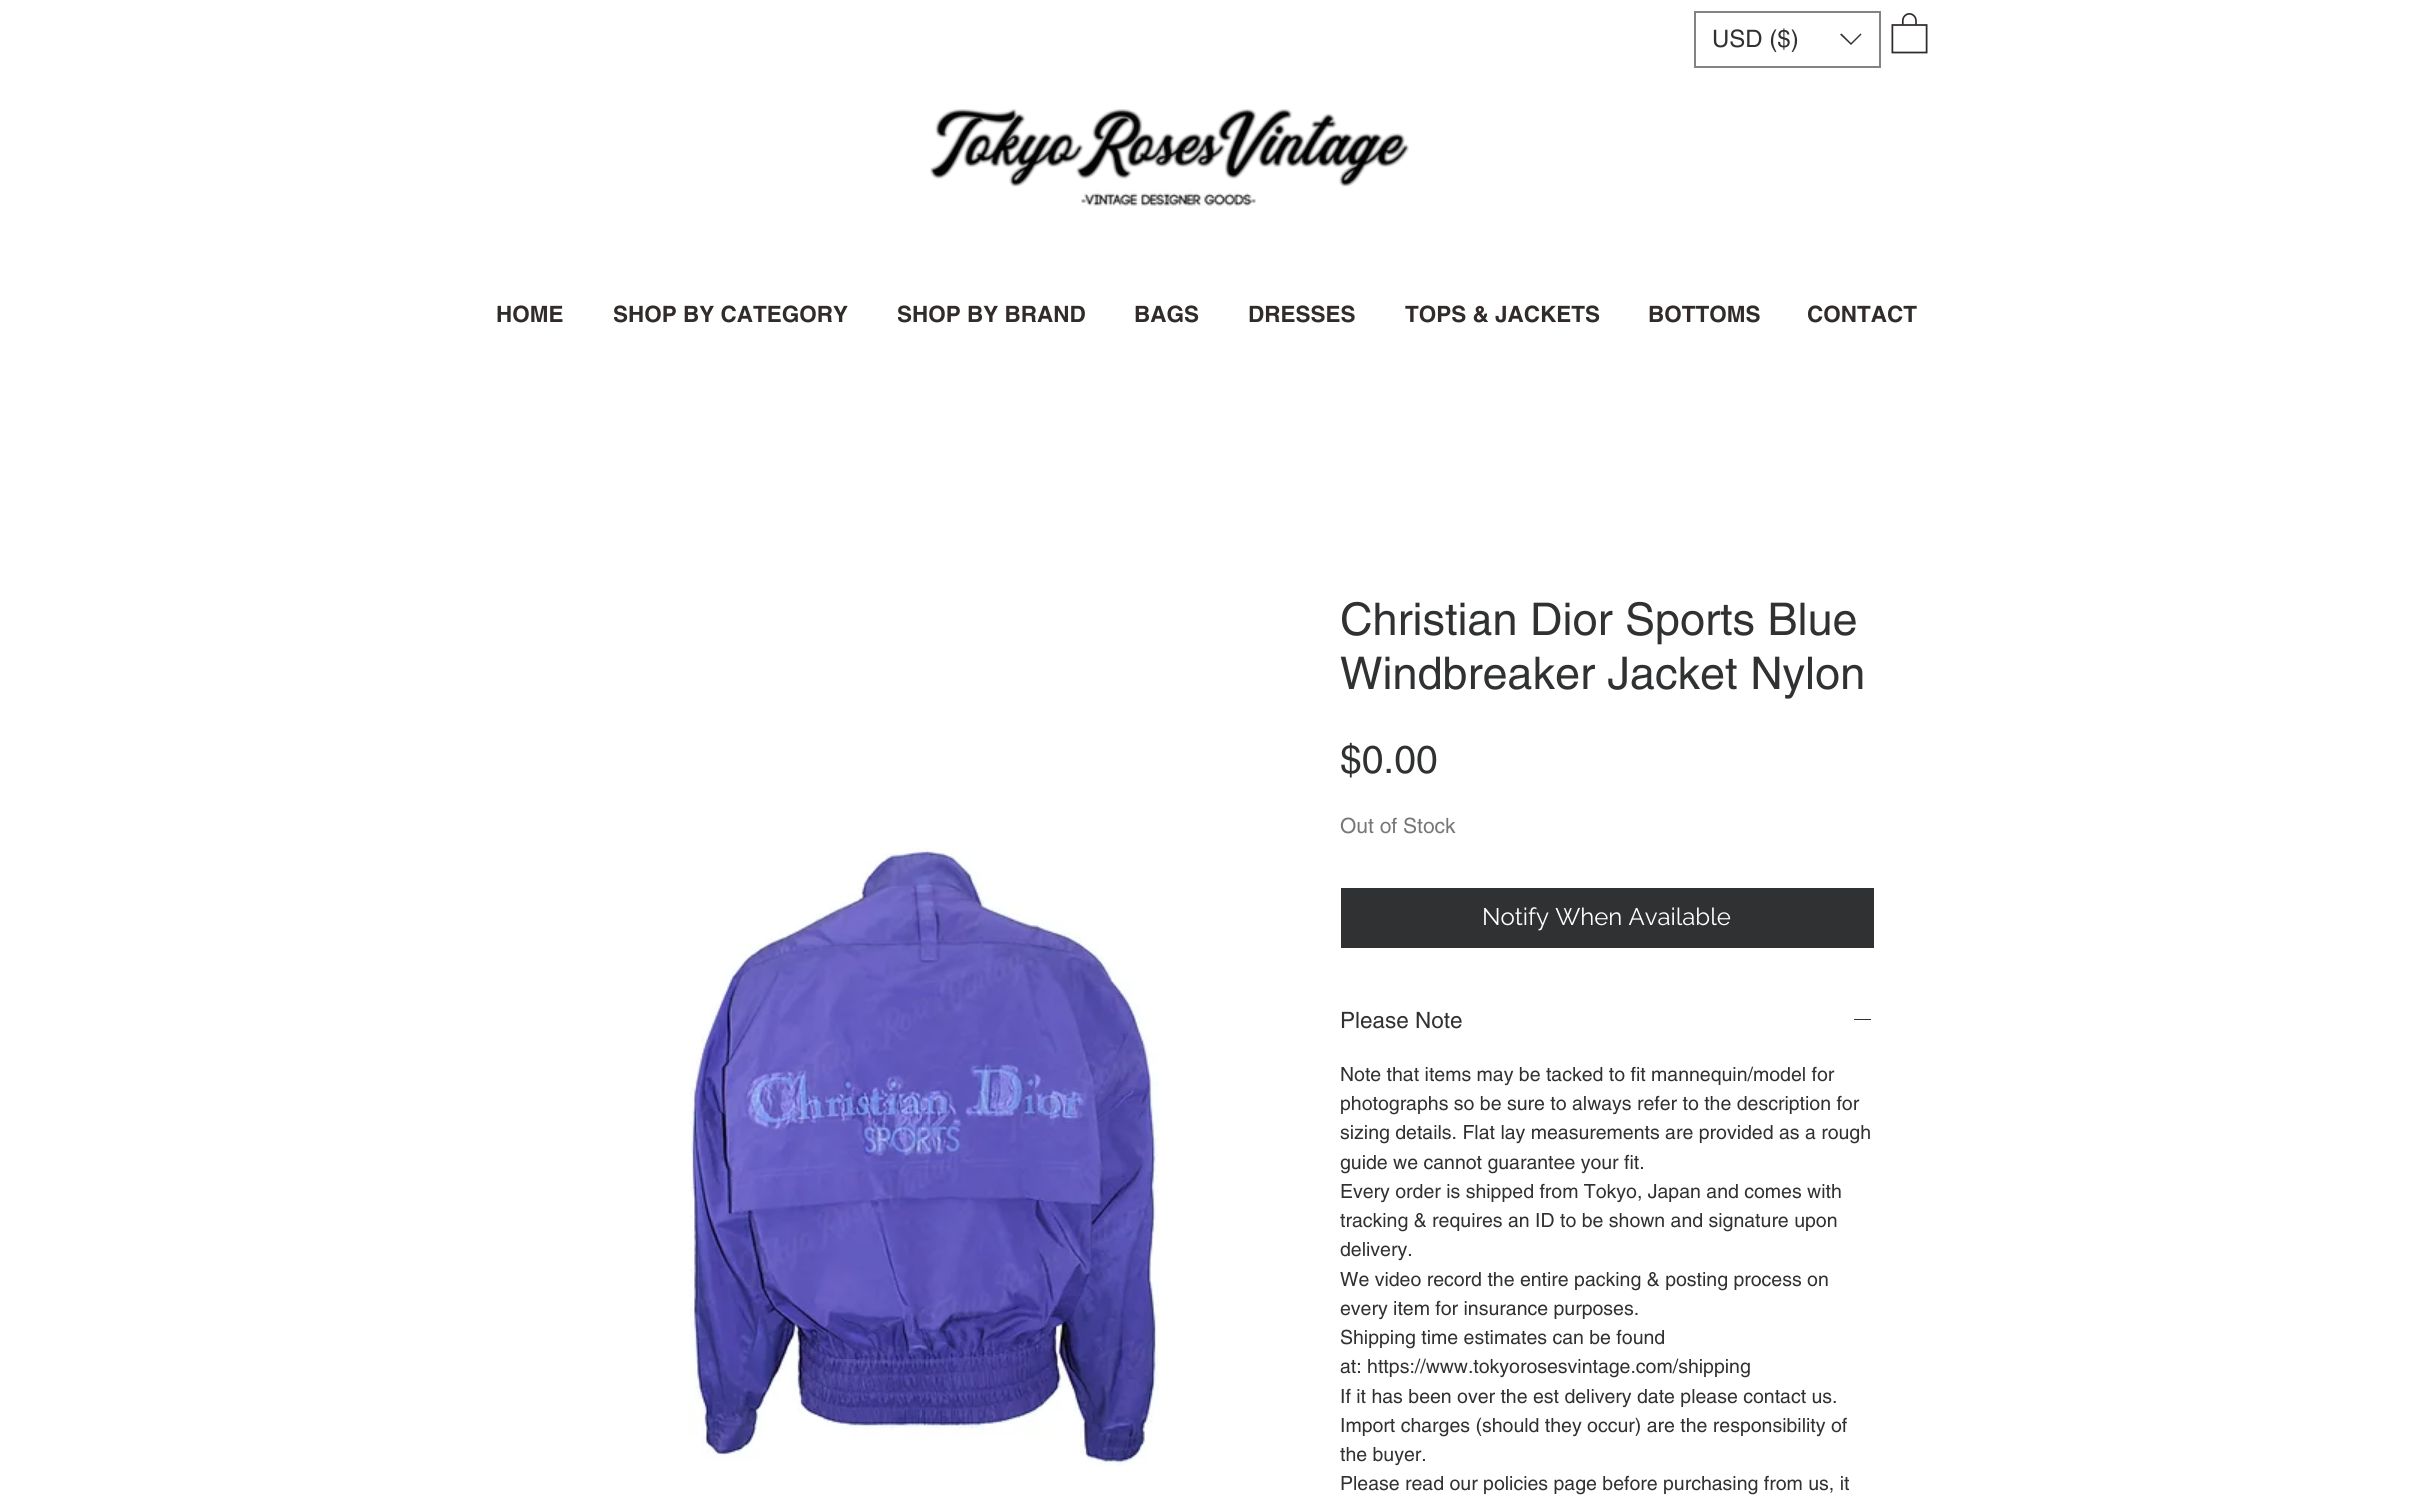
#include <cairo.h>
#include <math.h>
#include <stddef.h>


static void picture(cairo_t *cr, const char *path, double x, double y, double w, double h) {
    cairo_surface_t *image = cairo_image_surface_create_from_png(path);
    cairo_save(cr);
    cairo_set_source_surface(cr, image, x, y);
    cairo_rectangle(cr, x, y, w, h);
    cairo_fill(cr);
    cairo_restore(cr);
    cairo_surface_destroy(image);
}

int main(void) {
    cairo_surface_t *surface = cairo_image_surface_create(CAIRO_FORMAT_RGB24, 2410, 1503);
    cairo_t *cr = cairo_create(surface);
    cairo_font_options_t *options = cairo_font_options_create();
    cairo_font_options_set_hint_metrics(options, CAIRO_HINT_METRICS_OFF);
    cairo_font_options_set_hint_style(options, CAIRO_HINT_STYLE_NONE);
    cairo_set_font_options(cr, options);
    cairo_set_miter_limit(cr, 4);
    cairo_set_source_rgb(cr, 1, 1, 1);
    cairo_paint(cr);
    cairo_rectangle(cr, 1695, 12, 185, 55);
    cairo_set_source_rgb(cr, 0.514, 0.514, 0.518);
    cairo_stroke(cr);
    cairo_select_font_face(cr, "helvetica", CAIRO_FONT_SLANT_NORMAL, CAIRO_FONT_WEIGHT_NORMAL);
    cairo_set_font_size(cr, 24);
    cairo_set_source_rgb(cr, 0.188, 0.192, 0.196);
    cairo_move_to(cr, 1712, 47);
    cairo_show_text(cr, "USD ($)");
    cairo_set_fill_rule(cr, CAIRO_FILL_RULE_EVEN_ODD);
    cairo_new_path(cr);
    cairo_move_to(cr, 1860.5, 33.5);
    cairo_line_to(cr, 1861.5, 34.5);
    cairo_line_to(cr, 1851, 45);
    cairo_line_to(cr, 1840, 34.5);
    cairo_line_to(cr, 1841.5, 33.5);
    cairo_line_to(cr, 1851, 43);
    cairo_close_path(cr);
    cairo_fill(cr);
    picture(cr, "img1.png", 1891, 13, 37, 41);
    picture(cr, "img2.png", 930, 109, 479, 97);
    cairo_select_font_face(cr, "helvetica", CAIRO_FONT_SLANT_NORMAL, CAIRO_FONT_WEIGHT_BOLD);
    cairo_set_font_size(cr, 22.5);
    cairo_set_source_rgb(cr, 0.192, 0.169, 0.165);
    cairo_move_to(cr, 496, 322);
    cairo_show_text(cr, "HOME");
    cairo_move_to(cr, 613, 322);
    cairo_show_text(cr, "SHOP BY CATEGORY");
    cairo_move_to(cr, 897, 322);
    cairo_show_text(cr, "SHOP BY BRAND");
    cairo_move_to(cr, 1134, 322);
    cairo_show_text(cr, "BAGS");
    cairo_move_to(cr, 1248, 322);
    cairo_show_text(cr, "DRESSES");
    cairo_move_to(cr, 1405, 322);
    cairo_show_text(cr, "TOPS & JACKETS");
    cairo_move_to(cr, 1648, 322);
    cairo_show_text(cr, "BOTTOMS");
    cairo_move_to(cr, 1807, 322);
    cairo_show_text(cr, "CONTACT");
    picture(cr, "img3.png", 689, 847, 470, 619);
    cairo_select_font_face(cr, "helvetica", CAIRO_FONT_SLANT_NORMAL, CAIRO_FONT_WEIGHT_NORMAL);
    cairo_set_font_size(cr, 45);
    cairo_set_source_rgb(cr, 0.188, 0.192, 0.196);
    cairo_move_to(cr, 1340, 635);
    cairo_show_text(cr, "Christian Dior Sports Blue");
    cairo_move_to(cr, 1340, 689);
    cairo_show_text(cr, "Windbreaker Jacket Nylon");
    cairo_set_font_size(cr, 39);
    cairo_move_to(cr, 1340, 773);
    cairo_show_text(cr, "$0.00");
    cairo_set_font_size(cr, 21);
    cairo_set_source_rgb(cr, 0.467, 0.467, 0.467);
    cairo_move_to(cr, 1340, 833);
    cairo_show_text(cr, "Out of Stock");
    cairo_set_source_rgb(cr, 0.188, 0.192, 0.196);
    cairo_rectangle(cr, 1341, 888, 533, 60);
    cairo_fill(cr);
    cairo_select_font_face(cr, "Raleway", CAIRO_FONT_SLANT_NORMAL, CAIRO_FONT_WEIGHT_NORMAL);
    cairo_set_font_size(cr, 24);
    cairo_set_source_rgb(cr, 1, 1, 1);
    cairo_move_to(cr, 1482, 925);
    cairo_show_text(cr, "Notify When Available");
    cairo_select_font_face(cr, "helvetica", CAIRO_FONT_SLANT_NORMAL, CAIRO_FONT_WEIGHT_NORMAL);
    cairo_set_font_size(cr, 22.5);
    cairo_set_source_rgb(cr, 0.188, 0.192, 0.196);
    cairo_move_to(cr, 1340, 1028);
    cairo_show_text(cr, "Please Note");
    cairo_rectangle(cr, 1854, 1019, 17, 1);
    cairo_fill(cr);
    cairo_set_font_size(cr, 19.5);
    cairo_move_to(cr, 1340, 1081);
    cairo_show_text(cr, "Note that items may be tacked to fit mannequin/model for");
    cairo_move_to(cr, 1340, 1110);
    cairo_show_text(cr, "photographs so be sure to always refer to the description for");
    cairo_move_to(cr, 1340, 1139);
    cairo_show_text(cr, "sizing details. Flat lay measurements are provided as a rough");
    cairo_move_to(cr, 1340, 1169);
    cairo_show_text(cr, "guide we cannot guarantee your fit.");
    cairo_move_to(cr, 1340, 1198);
    cairo_show_text(cr, "Every order is shipped from Tokyo, Japan and comes with");
    cairo_move_to(cr, 1340, 1227);
    cairo_show_text(cr, "tracking & requires an ID to be shown and signature upon");
    cairo_move_to(cr, 1340, 1256);
    cairo_show_text(cr, "delivery.");
    cairo_move_to(cr, 1340, 1286);
    cairo_show_text(cr, "We video record the entire packing & posting process on");
    cairo_move_to(cr, 1340, 1315);
    cairo_show_text(cr, "every item for insurance purposes.");
    cairo_move_to(cr, 1340, 1344);
    cairo_show_text(cr, "Shipping time estimates can be found");
    cairo_move_to(cr, 1340, 1373);
    cairo_show_text(cr, "at: https://www.tokyorosesvintage.com/shipping");
    cairo_move_to(cr, 1340, 1403);
    cairo_show_text(cr, "If it has been over the est delivery date please contact us.");
    cairo_move_to(cr, 1340, 1432);
    cairo_show_text(cr, "Import charges (should they occur) are the responsibility of");
    cairo_move_to(cr, 1340, 1461);
    cairo_show_text(cr, "the buyer.");
    cairo_move_to(cr, 1340, 1490);
    cairo_show_text(cr, "Please read our policies page before purchasing from us, it");
    cairo_surface_write_to_png(surface, "page.png");
    cairo_font_options_destroy(options);
    cairo_destroy(cr);
    cairo_surface_destroy(surface);
    return 0;
}
